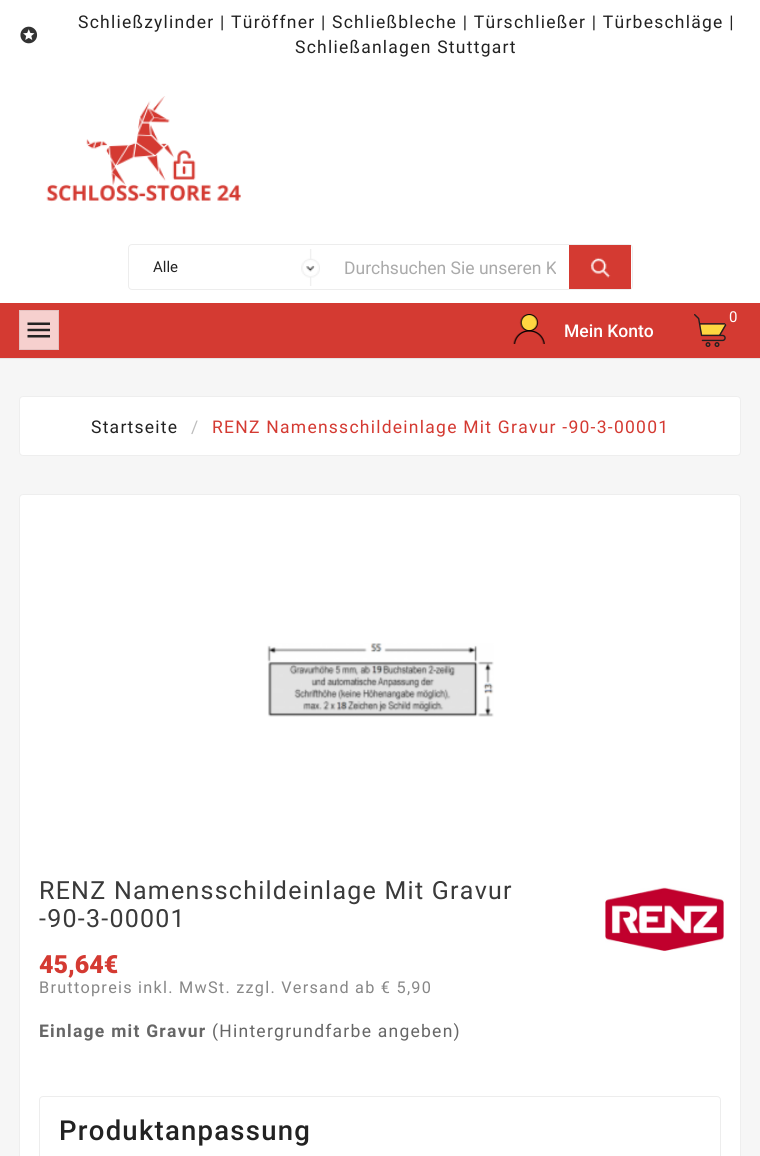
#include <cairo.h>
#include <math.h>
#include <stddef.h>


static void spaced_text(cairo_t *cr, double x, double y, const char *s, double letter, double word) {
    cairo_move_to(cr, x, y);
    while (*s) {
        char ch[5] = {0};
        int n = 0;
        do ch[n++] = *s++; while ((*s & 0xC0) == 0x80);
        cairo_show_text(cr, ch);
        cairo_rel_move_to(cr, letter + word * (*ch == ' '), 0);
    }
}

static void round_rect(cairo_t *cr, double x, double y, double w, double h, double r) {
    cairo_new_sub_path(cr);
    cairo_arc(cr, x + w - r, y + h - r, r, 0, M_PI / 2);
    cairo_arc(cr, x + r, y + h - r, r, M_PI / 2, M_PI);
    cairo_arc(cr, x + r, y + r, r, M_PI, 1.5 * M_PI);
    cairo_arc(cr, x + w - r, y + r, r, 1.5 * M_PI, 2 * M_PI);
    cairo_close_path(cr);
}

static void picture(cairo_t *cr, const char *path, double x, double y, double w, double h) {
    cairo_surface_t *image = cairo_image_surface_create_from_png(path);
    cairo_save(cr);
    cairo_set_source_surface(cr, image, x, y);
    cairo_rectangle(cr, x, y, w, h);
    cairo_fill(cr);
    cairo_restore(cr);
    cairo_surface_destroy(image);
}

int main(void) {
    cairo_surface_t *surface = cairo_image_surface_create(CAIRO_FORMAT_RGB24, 760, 1156);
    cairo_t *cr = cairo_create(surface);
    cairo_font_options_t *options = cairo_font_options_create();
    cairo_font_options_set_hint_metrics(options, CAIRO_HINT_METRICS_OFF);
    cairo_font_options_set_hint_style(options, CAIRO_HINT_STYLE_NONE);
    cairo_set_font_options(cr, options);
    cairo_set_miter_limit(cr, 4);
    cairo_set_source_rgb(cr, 0.961, 0.961, 0.961);
    cairo_paint(cr);
    cairo_set_source_rgb(cr, 1, 1, 1);
    cairo_rectangle(cr, 0, 0, 760, 303);
    cairo_fill(cr);
    cairo_set_source_rgb(cr, 0.898, 0.898, 0.898);
    cairo_rectangle(cr, 0, 358, 760, 1);
    cairo_fill(cr);
    picture(cr, "img1.png", 20, 26, 18, 18);
    cairo_select_font_face(cr, "Roboto", CAIRO_FONT_SLANT_NORMAL, CAIRO_FONT_WEIGHT_NORMAL);
    cairo_set_font_size(cr, 17.5);
    cairo_set_source_rgb(cr, 0.133, 0.133, 0.133);
    spaced_text(cr, 78, 28, "Schließzylinder | Türöffner | Schließbleche | Türschließer | Türbeschläge |", 1.25, 0);
    spaced_text(cr, 295, 53, "Schließanlagen Stuttgart", 1.25, 0);
    picture(cr, "img2.png", 46, 96, 195, 106);
    round_rect(cr, 128.5, 244.5, 504, 45, 3.5);
    cairo_set_source_rgb(cr, 0.929, 0.929, 0.929);
    cairo_set_line_width(cr, 1);
    cairo_stroke(cr);
    picture(cr, "img3.png", 301, 249, 19, 37);
    cairo_set_font_size(cr, 15);
    cairo_set_source_rgb(cr, 0.133, 0.133, 0.133);
    cairo_move_to(cr, 153, 272);
    cairo_show_text(cr, "Alle");
    cairo_save(cr);
    cairo_rectangle(cr, 345, 258, 211, 20);
    cairo_clip(cr);
    cairo_set_font_size(cr, 17.5);
    cairo_set_source_rgb(cr, 0.667, 0.667, 0.667);
    cairo_move_to(cr, 344, 274);
    cairo_show_text(cr, "Durchsuchen Sie unseren K");
    cairo_restore(cr);
    cairo_set_source_rgb(cr, 0.831, 0.227, 0.196);
    cairo_rectangle(cr, 569, 245, 62, 44);
    cairo_fill(cr);
    picture(cr, "img4.png", 590, 257, 21, 21);
    cairo_rectangle(cr, 0, 303, 760, 55);
    cairo_fill(cr);
    cairo_set_source_rgb(cr, 0.961, 0.816, 0.808);
    cairo_rectangle(cr, 19.5, 310.5, 39, 39);
    cairo_fill_preserve(cr);
    cairo_set_source_rgb(cr, 0.894, 0.757, 0.753);
    cairo_stroke(cr);
    picture(cr, "img5.png", 27, 322, 23, 16);
    picture(cr, "img6.png", 694, 314, 33, 33);
    cairo_set_source_rgb(cr, 0.831, 0.227, 0.196);
    round_rect(cr, 723, 305, 22, 23, 11);
    cairo_fill(cr);
    cairo_set_source_rgb(cr, 1, 1, 1);
    spaced_text(cr, 729, 322, "0", 1.25, 0);
    picture(cr, "img7.png", 513, 314, 32, 30);
    cairo_select_font_face(cr, "Roboto Medium", CAIRO_FONT_SLANT_NORMAL, CAIRO_FONT_WEIGHT_NORMAL);
    cairo_set_font_size(cr, 17.5);
    cairo_move_to(cr, 564, 337);
    cairo_show_text(cr, "Mein Konto");
    round_rect(cr, 19, 396, 722, 60, 4);
    cairo_fill(cr);
    round_rect(cr, 19.5, 396.5, 721, 59, 3.5);
    cairo_set_source_rgba(cr, 0, 0, 0, 0.07);
    cairo_stroke(cr);
    cairo_select_font_face(cr, "Roboto", CAIRO_FONT_SLANT_NORMAL, CAIRO_FONT_WEIGHT_NORMAL);
    cairo_set_source_rgb(cr, 0.133, 0.133, 0.133);
    spaced_text(cr, 91, 433, "Startseite", 1.25, 0);
    cairo_set_source_rgb(cr, 0.741, 0.741, 0.741);
    spaced_text(cr, 191, 433, "/", 1.25, 0);
    cairo_set_source_rgb(cr, 0.831, 0.227, 0.196);
    spaced_text(cr, 212, 433, "RENZ Namensschildeinlage Mit Gravur -90-3-00001", 1.25, 0);
    cairo_set_source_rgb(cr, 1, 1, 1);
    round_rect(cr, 19, 494, 722, 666, 4);
    cairo_fill(cr);
    round_rect(cr, 19.5, 494.5, 721, 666, 3.5);
    cairo_set_source_rgba(cr, 0, 0, 0, 0.07);
    cairo_stroke(cr);
    picture(cr, "img8.png", 267, 643, 227, 74);
    cairo_set_font_size(cr, 25);
    cairo_set_source_rgb(cr, 0.227, 0.227, 0.227);
    spaced_text(cr, 39, 899, "RENZ Namensschildeinlage Mit Gravur", 1.25, 0);
    spaced_text(cr, 39, 927, "-90-3-00001", 1.25, 0);
    picture(cr, "img9.png", 605, 887, 119, 64);
    cairo_select_font_face(cr, "Roboto Black", CAIRO_FONT_SLANT_NORMAL, CAIRO_FONT_WEIGHT_NORMAL);
    cairo_set_source_rgb(cr, 0.831, 0.227, 0.196);
    cairo_move_to(cr, 39, 973);
    cairo_show_text(cr, "45,64€");
    cairo_select_font_face(cr, "Roboto", CAIRO_FONT_SLANT_NORMAL, CAIRO_FONT_WEIGHT_NORMAL);
    cairo_set_font_size(cr, 16.25);
    cairo_set_source_rgb(cr, 0.529, 0.529, 0.529);
    spaced_text(cr, 39, 993, "Bruttopreis inkl. MwSt. zzgl. Versand ab € 5,90", 1.25, 0);
    cairo_select_font_face(cr, "Roboto", CAIRO_FONT_SLANT_NORMAL, CAIRO_FONT_WEIGHT_BOLD);
    cairo_set_font_size(cr, 17.5);
    cairo_set_source_rgb(cr, 0.4, 0.4, 0.4);
    spaced_text(cr, 39, 1037, "Einlage mit Gravur", 1.25, 0);
    cairo_select_font_face(cr, "Roboto", CAIRO_FONT_SLANT_NORMAL, CAIRO_FONT_WEIGHT_NORMAL);
    spaced_text(cr, 212, 1037, "(Hintergrundfarbe angeben)", 1.25, 0);
    round_rect(cr, 39.5, 1096.5, 681, 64, 3.5);
    cairo_set_source_rgb(cr, 0.929, 0.929, 0.929);
    cairo_stroke(cr);
    cairo_select_font_face(cr, "Roboto Medium", CAIRO_FONT_SLANT_NORMAL, CAIRO_FONT_WEIGHT_NORMAL);
    cairo_set_font_size(cr, 27.5);
    cairo_set_source_rgb(cr, 0.133, 0.133, 0.133);
    spaced_text(cr, 59, 1140, "Produktanpassung", 1.25, 0);
    cairo_surface_write_to_png(surface, "page.png");
    cairo_font_options_destroy(options);
    cairo_destroy(cr);
    cairo_surface_destroy(surface);
    return 0;
}
